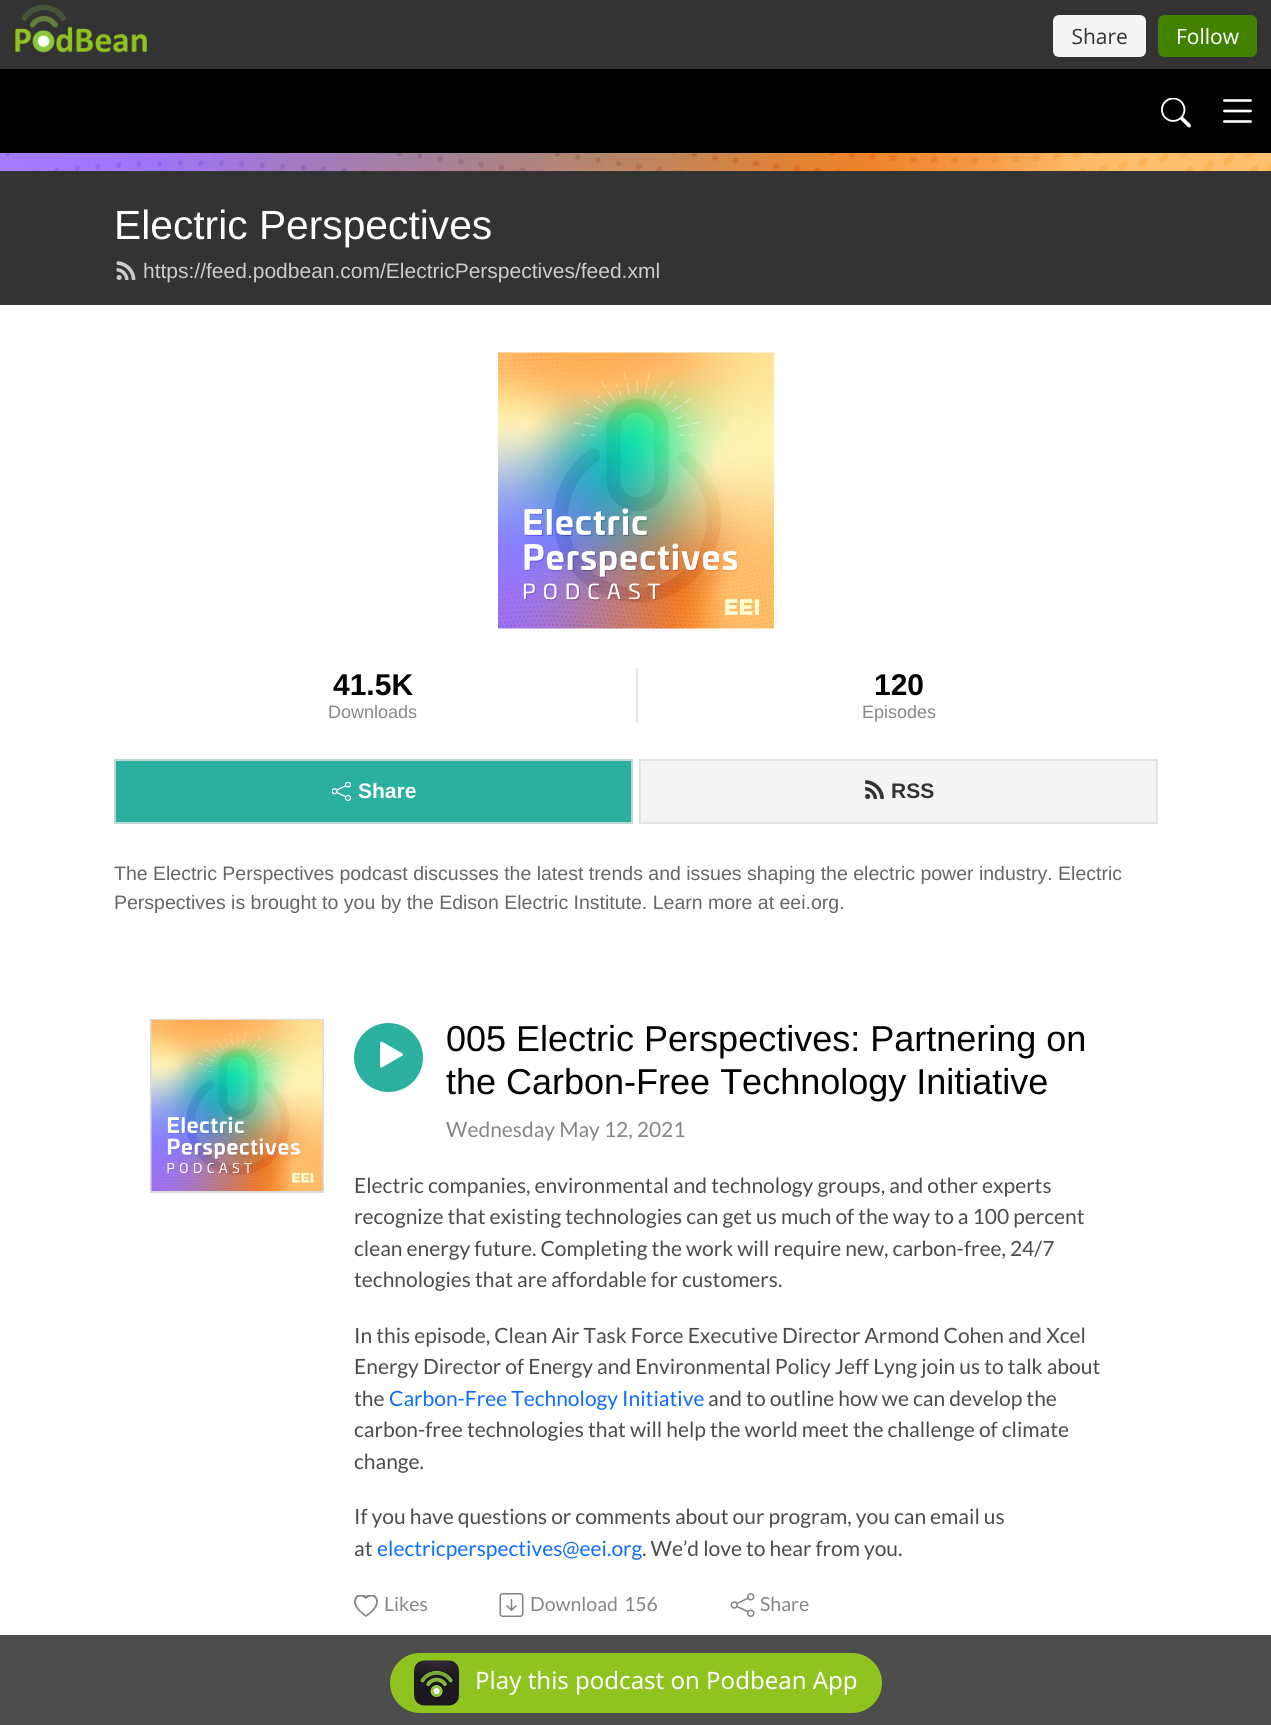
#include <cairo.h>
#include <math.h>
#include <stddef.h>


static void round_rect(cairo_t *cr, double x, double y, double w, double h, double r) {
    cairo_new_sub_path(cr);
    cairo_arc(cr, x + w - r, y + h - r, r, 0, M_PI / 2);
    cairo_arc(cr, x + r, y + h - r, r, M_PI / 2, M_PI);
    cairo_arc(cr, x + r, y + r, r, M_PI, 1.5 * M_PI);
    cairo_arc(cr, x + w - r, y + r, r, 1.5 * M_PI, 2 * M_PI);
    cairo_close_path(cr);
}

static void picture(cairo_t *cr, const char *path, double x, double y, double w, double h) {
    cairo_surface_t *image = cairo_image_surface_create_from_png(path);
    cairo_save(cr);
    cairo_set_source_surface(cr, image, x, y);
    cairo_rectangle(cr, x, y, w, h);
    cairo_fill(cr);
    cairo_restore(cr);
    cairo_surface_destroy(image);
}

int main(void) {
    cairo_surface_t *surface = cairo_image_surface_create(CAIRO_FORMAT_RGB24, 1271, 1725);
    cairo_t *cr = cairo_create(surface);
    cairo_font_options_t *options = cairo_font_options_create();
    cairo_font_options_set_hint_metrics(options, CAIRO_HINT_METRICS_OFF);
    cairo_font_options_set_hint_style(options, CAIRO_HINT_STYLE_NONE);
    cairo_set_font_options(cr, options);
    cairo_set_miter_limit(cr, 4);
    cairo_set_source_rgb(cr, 1, 1, 1);
    cairo_paint(cr);
    cairo_set_source_rgb(cr, 0.302, 0.302, 0.302);
    cairo_rectangle(cr, 0, 1635, 1271, 90);
    cairo_fill(cr);
    cairo_set_source_rgb(cr, 0.2, 0.2, 0.2);
    cairo_rectangle(cr, 0, 0, 1271, 69);
    cairo_fill(cr);
    picture(cr, "img1.png", 15, 4, 1242, 53);
    cairo_set_source_rgb(cr, 0, 0, 0);
    cairo_rectangle(cr, 0, 69, 1271, 84);
    cairo_fill(cr);
    picture(cr, "img2.png", 1161, 98, 30, 30);
    picture(cr, "img3.png", 1223, 99, 29, 24);
    picture(cr, "img4.png", 0, 153, 1271, 18);
    cairo_set_source_rgb(cr, 0.2, 0.2, 0.2);
    cairo_rectangle(cr, 0, 171, 1271, 134);
    cairo_fill(cr);
    cairo_select_font_face(cr, "Liberation Sans", CAIRO_FONT_SLANT_NORMAL, CAIRO_FONT_WEIGHT_NORMAL);
    cairo_set_font_size(cr, 40.75);
    cairo_set_source_rgb(cr, 1, 1, 1);
    cairo_move_to(cr, 114, 239);
    cairo_show_text(cr, "Electric Perspectives");
    picture(cr, "img5.png", 116, 261, 20, 20);
    cairo_set_font_size(cr, 21);
    cairo_set_source_rgb(cr, 0.8, 0.8, 0.8);
    cairo_move_to(cr, 143, 278);
    cairo_show_text(cr, "https://feed.podbean.com/ElectricPerspectives/feed.xml");
    picture(cr, "img6.png", 498, 352, 276, 277);
    cairo_select_font_face(cr, "Liberation Sans", CAIRO_FONT_SLANT_NORMAL, CAIRO_FONT_WEIGHT_BOLD);
    cairo_set_font_size(cr, 30);
    cairo_set_source_rgb(cr, 0, 0, 0);
    cairo_move_to(cr, 333, 695);
    cairo_show_text(cr, "41.5K");
    cairo_select_font_face(cr, "Liberation Sans", CAIRO_FONT_SLANT_NORMAL, CAIRO_FONT_WEIGHT_NORMAL);
    cairo_set_font_size(cr, 18);
    cairo_set_source_rgb(cr, 0.525, 0.525, 0.525);
    cairo_move_to(cr, 328, 718);
    cairo_show_text(cr, "Downloads");
    cairo_set_source_rgb(cr, 0.902, 0.902, 0.902);
    cairo_rectangle(cr, 636, 668, 2, 55);
    cairo_fill(cr);
    cairo_select_font_face(cr, "Liberation Sans", CAIRO_FONT_SLANT_NORMAL, CAIRO_FONT_WEIGHT_BOLD);
    cairo_set_font_size(cr, 30);
    cairo_set_source_rgb(cr, 0, 0, 0);
    cairo_move_to(cr, 874, 695);
    cairo_show_text(cr, "120");
    cairo_select_font_face(cr, "Liberation Sans", CAIRO_FONT_SLANT_NORMAL, CAIRO_FONT_WEIGHT_NORMAL);
    cairo_set_font_size(cr, 18);
    cairo_set_source_rgb(cr, 0.525, 0.525, 0.525);
    cairo_move_to(cr, 862, 718);
    cairo_show_text(cr, "Episodes");
    cairo_set_source_rgb(cr, 0.169, 0.686, 0.62);
    cairo_rectangle(cr, 115, 760, 517, 63);
    cairo_fill_preserve(cr);
    cairo_set_source_rgb(cr, 0.741, 0.847, 0.831);
    cairo_stroke(cr);
    picture(cr, "img7.png", 332, 782, 19, 19);
    cairo_select_font_face(cr, "Liberation Sans", CAIRO_FONT_SLANT_NORMAL, CAIRO_FONT_WEIGHT_BOLD);
    cairo_set_font_size(cr, 21);
    cairo_set_source_rgb(cr, 1, 1, 1);
    cairo_move_to(cr, 358, 798);
    cairo_show_text(cr, "Share");
    cairo_set_source_rgb(cr, 0.957, 0.957, 0.957);
    cairo_rectangle(cr, 640, 760, 517, 63);
    cairo_fill_preserve(cr);
    cairo_set_source_rgb(cr, 0.886, 0.886, 0.886);
    cairo_stroke(cr);
    picture(cr, "img8.png", 865, 780, 19, 20);
    cairo_set_source_rgb(cr, 0.2, 0.2, 0.2);
    cairo_move_to(cr, 891, 798);
    cairo_show_text(cr, "RSS");
    cairo_select_font_face(cr, "Liberation Sans", CAIRO_FONT_SLANT_NORMAL, CAIRO_FONT_WEIGHT_NORMAL);
    cairo_set_font_size(cr, 19.5);
    cairo_set_source_rgb(cr, 0.392, 0.4, 0.412);
    cairo_move_to(cr, 114, 880);
    cairo_show_text(cr, "The Electric Perspectives podcast discusses the latest trends and issues shaping the electric power industry. Electric");
    cairo_move_to(cr, 114, 909);
    cairo_show_text(cr, "Perspectives is brought to you by the Edison Electric Institute. Learn more at eei.org.");
    cairo_rectangle(cr, 151, 1020, 172, 172);
    cairo_set_source_rgb(cr, 0.855, 0.855, 0.855);
    cairo_stroke(cr);
    picture(cr, "img9.png", 151, 1020, 172, 171);
    cairo_set_source_rgb(cr, 0.169, 0.686, 0.62);
    cairo_arc(cr, 388.5, 1057.5, 34.5, 0, 2 * M_PI);
    cairo_fill(cr);
    picture(cr, "img10.png", 380, 1041, 23, 27);
    cairo_set_font_size(cr, 36);
    cairo_set_source_rgb(cr, 0, 0, 0);
    cairo_move_to(cr, 446, 1051);
    cairo_show_text(cr, "005 Electric Perspectives: Partnering on");
    cairo_move_to(cr, 446, 1094);
    cairo_show_text(cr, "the Carbon-Free Technology Initiative");
    cairo_select_font_face(cr, "Lato", CAIRO_FONT_SLANT_NORMAL, CAIRO_FONT_WEIGHT_NORMAL);
    cairo_set_font_size(cr, 21);
    cairo_set_source_rgb(cr, 0.525, 0.525, 0.525);
    cairo_move_to(cr, 446, 1137);
    cairo_show_text(cr, "Wednesday May 12, 2021");
    cairo_set_source_rgb(cr, 0.298, 0.298, 0.298);
    cairo_move_to(cr, 354, 1193);
    cairo_show_text(cr, "Electric companies, environmental and technology groups, and other experts");
    cairo_move_to(cr, 354, 1224);
    cairo_show_text(cr, "recognize that existing technologies can get us much of the way to a 100 percent");
    cairo_move_to(cr, 354, 1256);
    cairo_show_text(cr, "clean energy future. Completing the work will require new, carbon-free, 24/7");
    cairo_move_to(cr, 354, 1287);
    cairo_show_text(cr, "technologies that are affordable for customers.");
    cairo_move_to(cr, 354, 1343);
    cairo_show_text(cr, "In this episode, Clean Air Task Force Executive Director Armond Cohen and Xcel");
    cairo_move_to(cr, 354, 1374);
    cairo_show_text(cr, "Energy Director of Energy and Environmental Policy Jeff Lyng join us to talk about");
    cairo_move_to(cr, 354, 1406);
    cairo_show_text(cr, "the");
    cairo_set_source_rgb(cr, 0.051, 0.431, 0.992);
    cairo_move_to(cr, 389, 1406);
    cairo_show_text(cr, "Carbon-Free Technology Initiative");
    cairo_set_source_rgb(cr, 0.298, 0.298, 0.298);
    cairo_move_to(cr, 708, 1406);
    cairo_show_text(cr, "and to outline how we can develop the");
    cairo_move_to(cr, 354, 1437);
    cairo_show_text(cr, "carbon-free technologies that will help the world meet the challenge of climate");
    cairo_move_to(cr, 354, 1469);
    cairo_show_text(cr, "change.");
    cairo_move_to(cr, 354, 1524);
    cairo_show_text(cr, "If you have questions or comments about our program, you can email us");
    cairo_move_to(cr, 354, 1556);
    cairo_show_text(cr, "at");
    cairo_set_source_rgb(cr, 0.051, 0.431, 0.992);
    cairo_move_to(cr, 377, 1556);
    cairo_show_text(cr, "electricperspectives@eei.org");
    cairo_set_source_rgb(cr, 0.298, 0.298, 0.298);
    cairo_move_to(cr, 642, 1556);
    cairo_show_text(cr, ". We’d love to hear from you.");
    cairo_save(cr);
    cairo_rectangle(cr, 351, 1595, 30, 24);
    cairo_clip(cr);
    cairo_set_source_rgb(cr, 0.514, 0.514, 0.514);
    cairo_new_path(cr);
    cairo_move_to(cr, 366, 1599);
    cairo_curve_to(cr, 358, 1591, 348, 1603, 366, 1615);
    cairo_curve_to(cr, 384, 1603, 374, 1591, 366, 1599);
    cairo_close_path(cr);
    cairo_move_to(cr, 366, 1617);
    cairo_curve_to(cr, 343, 1602, 359, 1589, 366, 1596);
    cairo_curve_to(cr, 373, 1589, 389, 1602, 366, 1617);
    cairo_close_path(cr);
    cairo_fill(cr);
    cairo_restore(cr);
    cairo_set_font_size(cr, 19.5);
    cairo_set_source_rgb(cr, 0.525, 0.525, 0.525);
    cairo_move_to(cr, 384, 1611);
    cairo_show_text(cr, "Likes");
    picture(cr, "img11.png", 499, 1593, 25, 24);
    cairo_move_to(cr, 530, 1611);
    cairo_show_text(cr, "Download");
    cairo_move_to(cr, 624, 1611);
    cairo_show_text(cr, "156");
    picture(cr, "img12.png", 730, 1593, 25, 24);
    cairo_move_to(cr, 760, 1611);
    cairo_show_text(cr, "Share");
    cairo_set_source_rgb(cr, 0.561, 0.765, 0.122);
    round_rect(cr, 390, 1653, 492, 60, 30);
    cairo_fill(cr);
    picture(cr, "img13.png", 414, 1660, 45, 46);
    cairo_select_font_face(cr, "Noto Sans", CAIRO_FONT_SLANT_NORMAL, CAIRO_FONT_WEIGHT_NORMAL);
    cairo_set_font_size(cr, 24);
    cairo_set_source_rgb(cr, 1, 1, 1);
    cairo_move_to(cr, 475, 1689);
    cairo_show_text(cr, "Play this podcast on Podbean App");
    cairo_surface_write_to_png(surface, "page.png");
    cairo_font_options_destroy(options);
    cairo_destroy(cr);
    cairo_surface_destroy(surface);
    return 0;
}
